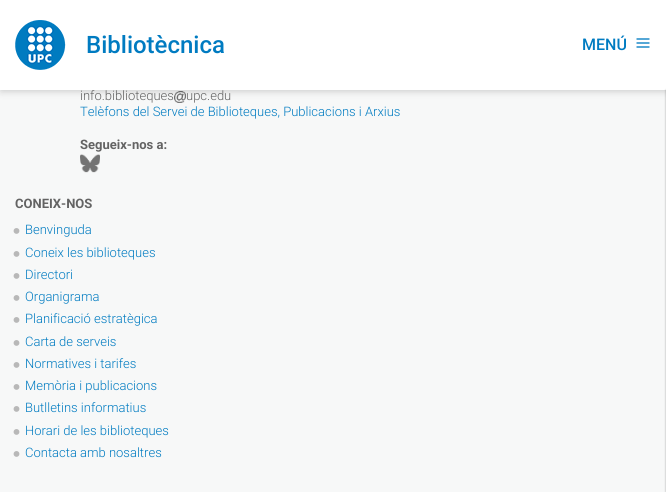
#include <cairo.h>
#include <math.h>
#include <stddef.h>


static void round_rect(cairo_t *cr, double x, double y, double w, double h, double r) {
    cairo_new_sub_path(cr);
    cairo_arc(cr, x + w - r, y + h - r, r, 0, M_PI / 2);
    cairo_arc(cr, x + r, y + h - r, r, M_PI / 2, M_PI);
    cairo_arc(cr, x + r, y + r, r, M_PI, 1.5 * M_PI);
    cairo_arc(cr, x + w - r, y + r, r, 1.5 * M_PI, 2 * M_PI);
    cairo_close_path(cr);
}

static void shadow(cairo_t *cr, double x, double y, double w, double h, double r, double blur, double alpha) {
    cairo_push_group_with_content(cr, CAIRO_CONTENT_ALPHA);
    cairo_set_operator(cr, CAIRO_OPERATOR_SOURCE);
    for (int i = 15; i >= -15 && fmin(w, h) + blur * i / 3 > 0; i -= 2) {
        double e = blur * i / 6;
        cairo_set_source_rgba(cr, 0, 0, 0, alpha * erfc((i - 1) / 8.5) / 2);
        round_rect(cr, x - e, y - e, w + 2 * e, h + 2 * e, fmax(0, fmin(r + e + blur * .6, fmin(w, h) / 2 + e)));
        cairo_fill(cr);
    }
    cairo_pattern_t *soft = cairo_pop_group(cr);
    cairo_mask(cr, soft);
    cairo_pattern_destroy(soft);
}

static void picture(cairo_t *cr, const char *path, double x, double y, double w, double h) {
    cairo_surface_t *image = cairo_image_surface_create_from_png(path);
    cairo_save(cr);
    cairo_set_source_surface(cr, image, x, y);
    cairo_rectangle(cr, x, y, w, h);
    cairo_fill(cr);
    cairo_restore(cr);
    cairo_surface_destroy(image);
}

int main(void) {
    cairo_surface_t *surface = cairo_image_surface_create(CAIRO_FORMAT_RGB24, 666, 492);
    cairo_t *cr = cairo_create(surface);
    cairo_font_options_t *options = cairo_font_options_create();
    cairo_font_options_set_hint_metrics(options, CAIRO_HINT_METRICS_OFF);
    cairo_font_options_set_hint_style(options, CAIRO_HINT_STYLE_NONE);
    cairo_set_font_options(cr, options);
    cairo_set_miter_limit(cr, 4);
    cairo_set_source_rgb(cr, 0.965, 0.969, 0.969);
    cairo_paint(cr);
    picture(cr, "img3.png", 174, 91, 12, 12);
    cairo_set_source_rgb(cr, 0, 0, 0);
    shadow(cr, 1, 1, 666, 90, 0, 4, 0.2);
    cairo_set_source_rgb(cr, 1, 1, 1);
    cairo_rectangle(cr, 0, 0, 666, 90);
    cairo_fill(cr);
    picture(cr, "img1.png", 15, 20, 51, 50);
    cairo_select_font_face(cr, "Roboto Medium", CAIRO_FONT_SLANT_NORMAL, CAIRO_FONT_WEIGHT_NORMAL);
    cairo_set_font_size(cr, 24);
    cairo_set_source_rgb(cr, 0, 0.482, 0.757);
    cairo_move_to(cr, 86, 53);
    cairo_show_text(cr, "Bibliotècnica");
    cairo_set_font_size(cr, 16);
    cairo_move_to(cr, 582, 50);
    cairo_show_text(cr, "MENÚ");
    picture(cr, "img2.png", 636, 38, 14, 10);
    cairo_set_source_rgb(cr, 0, 0, 0);
    shadow(cr, 666, 90, 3, 402, 0, 1, 0.33);
    cairo_select_font_face(cr, "Roboto Light", CAIRO_FONT_SLANT_NORMAL, CAIRO_FONT_WEIGHT_NORMAL);
    cairo_set_font_size(cr, 13);
    cairo_set_source_rgb(cr, 0.388, 0.388, 0.388);
    cairo_move_to(cr, 80, 100);
    cairo_show_text(cr, "info.biblioteques");
    cairo_move_to(cr, 186, 100);
    cairo_show_text(cr, "upc.edu");
    cairo_set_source_rgb(cr, 0, 0.482, 0.757);
    cairo_move_to(cr, 80, 116);
    cairo_show_text(cr, "Telèfons del Servei de Biblioteques, Publicacions i Arxius");
    cairo_select_font_face(cr, "Roboto", CAIRO_FONT_SLANT_NORMAL, CAIRO_FONT_WEIGHT_BOLD);
    cairo_set_source_rgb(cr, 0.388, 0.388, 0.388);
    cairo_move_to(cr, 80, 149);
    cairo_show_text(cr, "Segueix-nos a:");
    picture(cr, "img4.png", 80, 154, 20, 19);
    cairo_move_to(cr, 15, 208);
    cairo_show_text(cr, "CONEIX-NOS");
    picture(cr, "img5.png", 13, 228, 7, 6);
    cairo_select_font_face(cr, "Roboto Light", CAIRO_FONT_SLANT_NORMAL, CAIRO_FONT_WEIGHT_NORMAL);
    cairo_set_source_rgb(cr, 0, 0.482, 0.757);
    cairo_move_to(cr, 25, 234);
    cairo_show_text(cr, "Benvinguda");
    picture(cr, "img5.png", 13, 251, 7, 6);
    cairo_move_to(cr, 25, 257);
    cairo_show_text(cr, "Coneix les biblioteques");
    picture(cr, "img5.png", 13, 273, 7, 6);
    cairo_move_to(cr, 25, 279);
    cairo_show_text(cr, "Directori");
    picture(cr, "img5.png", 13, 295, 7, 6);
    cairo_move_to(cr, 25, 301);
    cairo_show_text(cr, "Organigrama");
    picture(cr, "img5.png", 13, 317, 7, 6);
    cairo_move_to(cr, 25, 323);
    cairo_show_text(cr, "Planificació estratègica");
    picture(cr, "img5.png", 13, 340, 7, 6);
    cairo_move_to(cr, 25, 346);
    cairo_show_text(cr, "Carta de serveis");
    picture(cr, "img5.png", 13, 362, 7, 6);
    cairo_move_to(cr, 25, 368);
    cairo_show_text(cr, "Normatives i tarifes");
    picture(cr, "img5.png", 13, 384, 7, 6);
    cairo_move_to(cr, 25, 390);
    cairo_show_text(cr, "Memòria i publicacions");
    picture(cr, "img5.png", 13, 406, 7, 6);
    cairo_move_to(cr, 25, 412);
    cairo_show_text(cr, "Butlletins informatius");
    picture(cr, "img5.png", 13, 429, 7, 6);
    cairo_move_to(cr, 25, 435);
    cairo_show_text(cr, "Horari de les biblioteques");
    picture(cr, "img5.png", 13, 451, 7, 6);
    cairo_move_to(cr, 25, 457);
    cairo_show_text(cr, "Contacta amb nosaltres");
    cairo_surface_write_to_png(surface, "page.png");
    cairo_font_options_destroy(options);
    cairo_destroy(cr);
    cairo_surface_destroy(surface);
    return 0;
}
